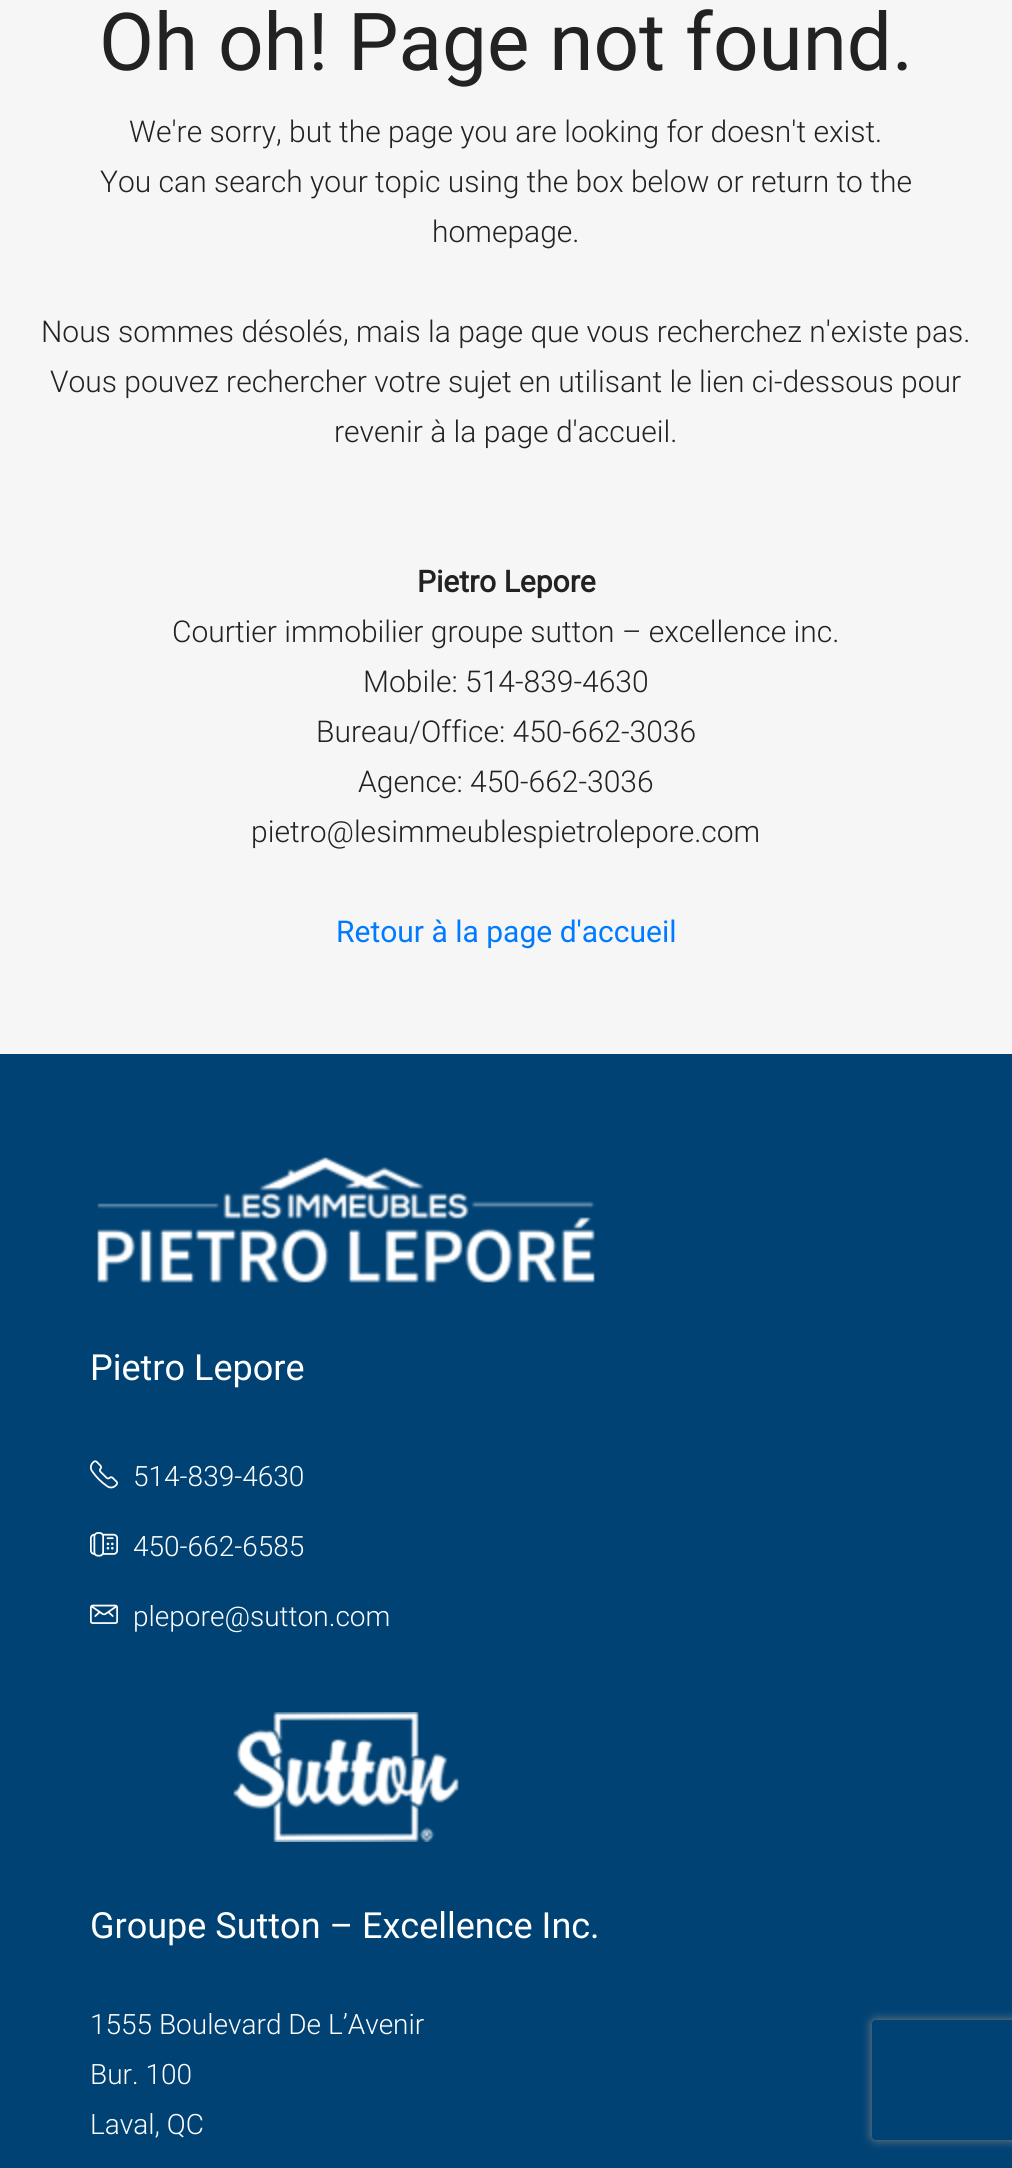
#include <cairo.h>
#include <math.h>
#include <stddef.h>


static void round_rect(cairo_t *cr, double x, double y, double w, double h, double r) {
    cairo_new_sub_path(cr);
    cairo_arc(cr, x + w - r, y + h - r, r, 0, M_PI / 2);
    cairo_arc(cr, x + r, y + h - r, r, M_PI / 2, M_PI);
    cairo_arc(cr, x + r, y + r, r, M_PI, 1.5 * M_PI);
    cairo_arc(cr, x + w - r, y + r, r, 1.5 * M_PI, 2 * M_PI);
    cairo_close_path(cr);
}

static void shadow(cairo_t *cr, double x, double y, double w, double h, double r, double blur, double alpha) {
    cairo_push_group_with_content(cr, CAIRO_CONTENT_ALPHA);
    cairo_set_operator(cr, CAIRO_OPERATOR_SOURCE);
    for (int i = 15; i >= -15 && fmin(w, h) + blur * i / 3 > 0; i -= 2) {
        double e = blur * i / 6;
        cairo_set_source_rgba(cr, 0, 0, 0, alpha * erfc((i - 1) / 8.5) / 2);
        round_rect(cr, x - e, y - e, w + 2 * e, h + 2 * e, fmax(0, fmin(r + e + blur * .6, fmin(w, h) / 2 + e)));
        cairo_fill(cr);
    }
    cairo_pattern_t *soft = cairo_pop_group(cr);
    cairo_mask(cr, soft);
    cairo_pattern_destroy(soft);
}

static void picture(cairo_t *cr, const char *path, double x, double y, double w, double h) {
    cairo_surface_t *image = cairo_image_surface_create_from_png(path);
    cairo_save(cr);
    cairo_set_source_surface(cr, image, x, y);
    cairo_rectangle(cr, x, y, w, h);
    cairo_fill(cr);
    cairo_restore(cr);
    cairo_surface_destroy(image);
}

int main(void) {
    cairo_surface_t *surface = cairo_image_surface_create(CAIRO_FORMAT_RGB24, 1012, 2168);
    cairo_t *cr = cairo_create(surface);
    cairo_font_options_t *options = cairo_font_options_create();
    cairo_font_options_set_hint_metrics(options, CAIRO_HINT_METRICS_OFF);
    cairo_font_options_set_hint_style(options, CAIRO_HINT_STYLE_NONE);
    cairo_set_font_options(cr, options);
    cairo_set_miter_limit(cr, 4);
    cairo_set_source_rgb(cr, 0.961, 0.961, 0.961);
    cairo_paint(cr);
    cairo_select_font_face(cr, "Roboto", CAIRO_FONT_SLANT_NORMAL, CAIRO_FONT_WEIGHT_NORMAL);
    cairo_set_font_size(cr, 80);
    cairo_set_source_rgb(cr, 0.133, 0.133, 0.133);
    cairo_move_to(cr, 99, 70);
    cairo_show_text(cr, "Oh oh! Page not found.");
    cairo_select_font_face(cr, "Roboto Light", CAIRO_FONT_SLANT_NORMAL, CAIRO_FONT_WEIGHT_NORMAL);
    cairo_set_font_size(cr, 30);
    cairo_move_to(cr, 129, 142);
    cairo_show_text(cr, "We're sorry, but the page you are looking for doesn't exist.");
    cairo_move_to(cr, 100, 192);
    cairo_show_text(cr, "You can search your topic using the box below or return to the");
    cairo_move_to(cr, 432, 242);
    cairo_show_text(cr, "homepage.");
    cairo_move_to(cr, 41, 342);
    cairo_show_text(cr, "Nous sommes désolés, mais la page que vous recherchez n'existe pas.");
    cairo_move_to(cr, 50, 392);
    cairo_show_text(cr, "Vous pouvez rechercher votre sujet en utilisant le lien ci-dessous pour");
    cairo_move_to(cr, 334, 442);
    cairo_show_text(cr, "revenir à la page d'accueil.");
    cairo_select_font_face(cr, "Roboto", CAIRO_FONT_SLANT_NORMAL, CAIRO_FONT_WEIGHT_BOLD);
    cairo_move_to(cr, 417, 592);
    cairo_show_text(cr, "Pietro Lepore");
    cairo_select_font_face(cr, "Roboto Light", CAIRO_FONT_SLANT_NORMAL, CAIRO_FONT_WEIGHT_NORMAL);
    cairo_move_to(cr, 172, 642);
    cairo_show_text(cr, "Courtier immobilier groupe sutton – excellence inc.");
    cairo_move_to(cr, 363, 692);
    cairo_show_text(cr, "Mobile: 514-839-4630");
    cairo_move_to(cr, 316, 742);
    cairo_show_text(cr, "Bureau/Office: 450-662-3036");
    cairo_move_to(cr, 358, 792);
    cairo_show_text(cr, "Agence: 450-662-3036");
    cairo_move_to(cr, 251, 842);
    cairo_show_text(cr, "pietro@lesimmeublespietrolepore.com");
    cairo_select_font_face(cr, "Roboto", CAIRO_FONT_SLANT_NORMAL, CAIRO_FONT_WEIGHT_NORMAL);
    cairo_set_source_rgb(cr, 0, 0.482, 1);
    cairo_move_to(cr, 336, 942);
    cairo_show_text(cr, "Retour à la page d'accueil");
    cairo_set_source_rgb(cr, 0, 0.259, 0.455);
    cairo_rectangle(cr, 0, 1054, 1012, 1114);
    cairo_fill(cr);
    picture(cr, "img1.png", 97, 1157, 498, 126);
    cairo_set_font_size(cr, 36);
    cairo_set_source_rgb(cr, 1, 1, 1);
    cairo_move_to(cr, 90, 1380);
    cairo_show_text(cr, "Pietro Lepore");
    picture(cr, "img2.png", 90, 1460, 28, 29);
    cairo_select_font_face(cr, "Roboto Light", CAIRO_FONT_SLANT_NORMAL, CAIRO_FONT_WEIGHT_NORMAL);
    cairo_set_font_size(cr, 28);
    cairo_move_to(cr, 133, 1486);
    cairo_show_text(cr, "514-839-4630");
    picture(cr, "img3.png", 90, 1532, 28, 25);
    cairo_move_to(cr, 133, 1556);
    cairo_show_text(cr, "450-662-6585");
    picture(cr, "img4.png", 90, 1604, 28, 20);
    cairo_move_to(cr, 133, 1626);
    cairo_show_text(cr, "plepore@sutton.com");
    picture(cr, "img5.png", 233, 1712, 226, 130);
    cairo_select_font_face(cr, "Roboto", CAIRO_FONT_SLANT_NORMAL, CAIRO_FONT_WEIGHT_NORMAL);
    cairo_set_font_size(cr, 36);
    cairo_move_to(cr, 90, 1938);
    cairo_show_text(cr, "Groupe Sutton – Excellence Inc.");
    cairo_select_font_face(cr, "Roboto Light", CAIRO_FONT_SLANT_NORMAL, CAIRO_FONT_WEIGHT_NORMAL);
    cairo_set_font_size(cr, 28);
    cairo_move_to(cr, 90, 2034);
    cairo_show_text(cr, "1555 Boulevard De L’Avenir");
    cairo_move_to(cr, 90, 2084);
    cairo_show_text(cr, "Bur. 100");
    cairo_move_to(cr, 90, 2134);
    cairo_show_text(cr, "Laval, QC");
    cairo_save(cr);
    cairo_set_fill_rule(cr, CAIRO_FILL_RULE_EVEN_ODD);
    cairo_new_path(cr);
    cairo_move_to(cr, 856, 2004);
    cairo_line_to(cr, 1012, 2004);
    cairo_line_to(cr, 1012, 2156);
    cairo_line_to(cr, 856, 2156);
    cairo_close_path(cr);
    cairo_move_to(cr, 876, 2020);
    cairo_line_to(cr, 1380, 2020);
    cairo_curve_to(cr, 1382, 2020, 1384, 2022, 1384, 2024);
    cairo_line_to(cr, 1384, 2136);
    cairo_curve_to(cr, 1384, 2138, 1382, 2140, 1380, 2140);
    cairo_line_to(cr, 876, 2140);
    cairo_curve_to(cr, 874, 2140, 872, 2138, 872, 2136);
    cairo_line_to(cr, 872, 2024);
    cairo_curve_to(cr, 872, 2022, 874, 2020, 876, 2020);
    cairo_close_path(cr);
    cairo_clip(cr);
    cairo_set_source_rgb(cr, 0.502, 0.502, 0.502);
    shadow(cr, 872, 2020, 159, 120, 4, 5, 1);
    cairo_restore(cr);
    cairo_surface_write_to_png(surface, "page.png");
    cairo_font_options_destroy(options);
    cairo_destroy(cr);
    cairo_surface_destroy(surface);
    return 0;
}
